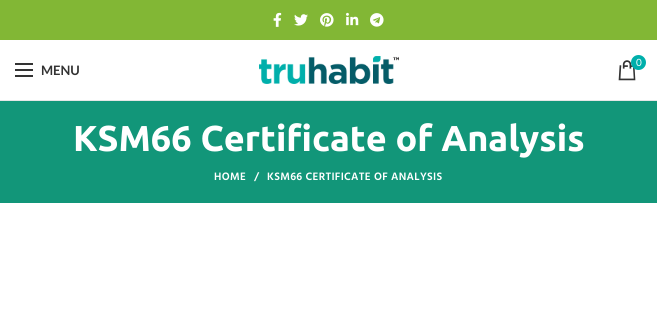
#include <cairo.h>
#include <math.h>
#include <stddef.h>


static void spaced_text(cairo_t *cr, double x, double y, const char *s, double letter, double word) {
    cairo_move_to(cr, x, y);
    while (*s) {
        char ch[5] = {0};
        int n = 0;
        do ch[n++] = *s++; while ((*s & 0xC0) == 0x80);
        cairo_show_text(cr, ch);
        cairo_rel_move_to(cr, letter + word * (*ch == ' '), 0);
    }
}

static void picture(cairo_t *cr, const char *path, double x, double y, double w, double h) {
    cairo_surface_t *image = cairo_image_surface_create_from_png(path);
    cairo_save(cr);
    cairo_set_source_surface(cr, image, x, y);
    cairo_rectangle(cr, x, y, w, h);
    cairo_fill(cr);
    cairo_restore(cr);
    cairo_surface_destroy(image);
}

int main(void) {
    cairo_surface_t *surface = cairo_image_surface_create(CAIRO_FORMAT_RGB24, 657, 311);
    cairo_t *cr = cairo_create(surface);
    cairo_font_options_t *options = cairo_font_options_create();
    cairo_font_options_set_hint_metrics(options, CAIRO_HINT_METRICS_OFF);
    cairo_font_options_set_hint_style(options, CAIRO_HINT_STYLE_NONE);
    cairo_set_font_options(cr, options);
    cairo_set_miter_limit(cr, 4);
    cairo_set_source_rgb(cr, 1, 1, 1);
    cairo_paint(cr);
    cairo_set_source_rgb(cr, 0.51, 0.718, 0.208);
    cairo_rectangle(cr, 0, 0, 657, 40);
    cairo_fill(cr);
    picture(cr, "img1.png", 273, 12, 9, 15);
    picture(cr, "img2.png", 294, 14, 14, 12);
    picture(cr, "img3.png", 320, 13, 14, 14);
    picture(cr, "img4.png", 346, 12, 13, 14);
    picture(cr, "img5.png", 370, 13, 14, 14);
    cairo_set_source_rgb(cr, 0.902, 0.902, 0.902);
    cairo_rectangle(cr, 0, 100, 657, 1);
    cairo_fill(cr);
    picture(cr, "img6.png", 259, 56, 140, 28);
    picture(cr, "img7.png", 618, 60, 18, 21);
    cairo_set_source_rgb(cr, 0, 0.686, 0.671);
    cairo_arc(cr, 638.5, 62.5, 7.5, 0, 2 * M_PI);
    cairo_fill(cr);
    cairo_select_font_face(cr, "Lato", CAIRO_FONT_SLANT_NORMAL, CAIRO_FONT_WEIGHT_NORMAL);
    cairo_set_font_size(cr, 10);
    cairo_set_source_rgb(cr, 1, 1, 1);
    cairo_move_to(cr, 636, 66);
    cairo_show_text(cr, "0");
    cairo_set_source_rgb(cr, 0.2, 0.2, 0.2);
    cairo_rectangle(cr, 15, 69, 18, 2);
    cairo_fill(cr);
    cairo_rectangle(cr, 15, 63, 18, 2);
    cairo_fill(cr);
    cairo_rectangle(cr, 15, 75, 18, 2);
    cairo_fill(cr);
    cairo_select_font_face(cr, "Lato", CAIRO_FONT_SLANT_NORMAL, CAIRO_FONT_WEIGHT_BOLD);
    cairo_set_font_size(cr, 13);
    cairo_move_to(cr, 41, 75);
    cairo_show_text(cr, "MENU");
    cairo_set_source_rgb(cr, 0.071, 0.588, 0.475);
    cairo_rectangle(cr, 0, 101, 657, 102);
    cairo_fill(cr);
    cairo_select_font_face(cr, "Ubuntu", CAIRO_FONT_SLANT_NORMAL, CAIRO_FONT_WEIGHT_BOLD);
    cairo_set_font_size(cr, 36);
    cairo_set_source_rgb(cr, 1, 1, 1);
    cairo_move_to(cr, 73, 151);
    cairo_show_text(cr, "KSM66 Certificate of Analysis");
    cairo_select_font_face(cr, "Hind SemiBold", CAIRO_FONT_SLANT_NORMAL, CAIRO_FONT_WEIGHT_NORMAL);
    cairo_set_font_size(cr, 11);
    spaced_text(cr, 214, 180, "HOME", 0.3, 0);
    spaced_text(cr, 254, 180, "/", 0.3, 0);
    spaced_text(cr, 267, 180, "KSM66 CERTIFICATE OF ANALYSIS", 0.3, 0);
    cairo_surface_write_to_png(surface, "page.png");
    cairo_font_options_destroy(options);
    cairo_destroy(cr);
    cairo_surface_destroy(surface);
    return 0;
}
